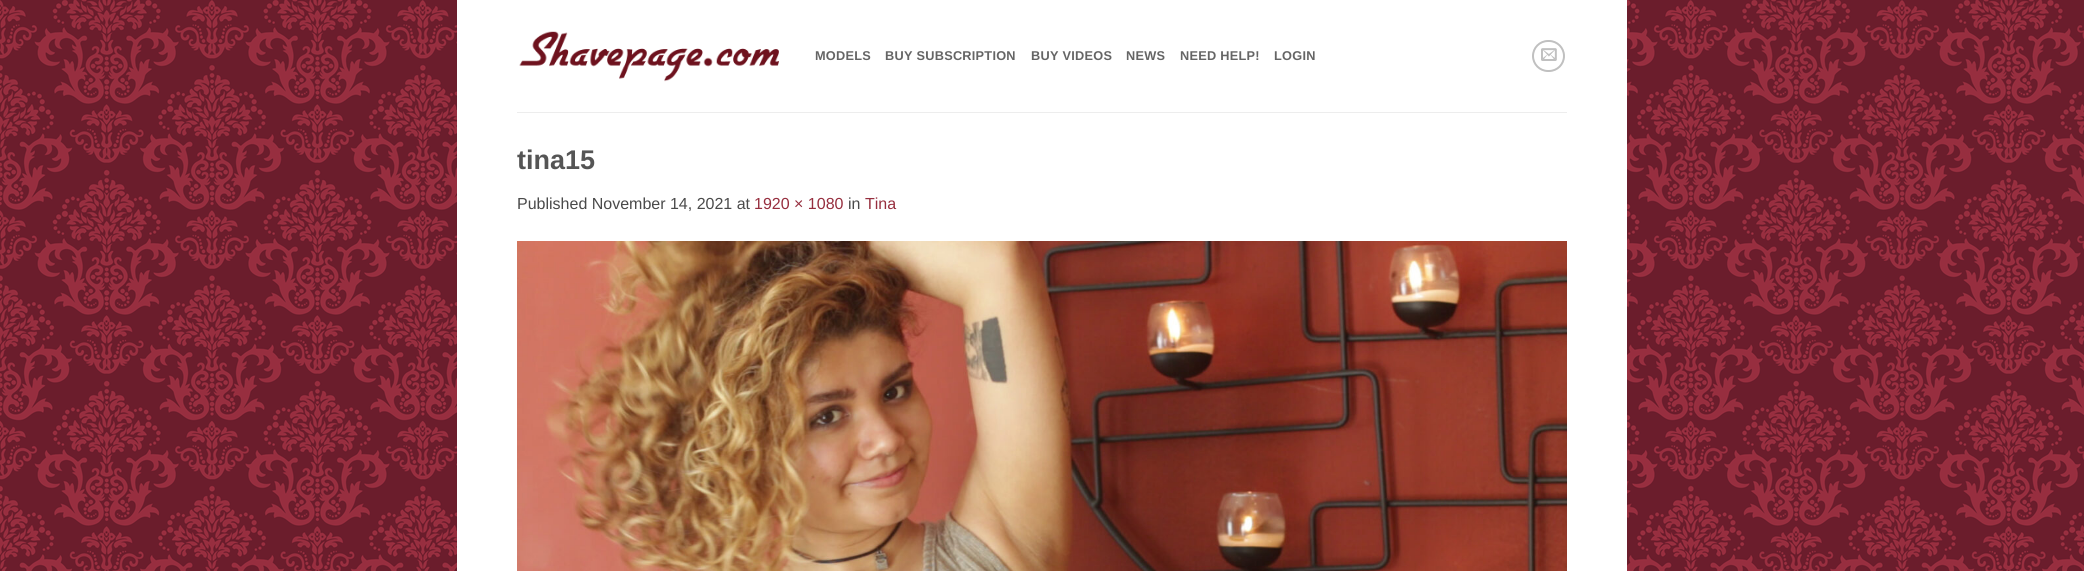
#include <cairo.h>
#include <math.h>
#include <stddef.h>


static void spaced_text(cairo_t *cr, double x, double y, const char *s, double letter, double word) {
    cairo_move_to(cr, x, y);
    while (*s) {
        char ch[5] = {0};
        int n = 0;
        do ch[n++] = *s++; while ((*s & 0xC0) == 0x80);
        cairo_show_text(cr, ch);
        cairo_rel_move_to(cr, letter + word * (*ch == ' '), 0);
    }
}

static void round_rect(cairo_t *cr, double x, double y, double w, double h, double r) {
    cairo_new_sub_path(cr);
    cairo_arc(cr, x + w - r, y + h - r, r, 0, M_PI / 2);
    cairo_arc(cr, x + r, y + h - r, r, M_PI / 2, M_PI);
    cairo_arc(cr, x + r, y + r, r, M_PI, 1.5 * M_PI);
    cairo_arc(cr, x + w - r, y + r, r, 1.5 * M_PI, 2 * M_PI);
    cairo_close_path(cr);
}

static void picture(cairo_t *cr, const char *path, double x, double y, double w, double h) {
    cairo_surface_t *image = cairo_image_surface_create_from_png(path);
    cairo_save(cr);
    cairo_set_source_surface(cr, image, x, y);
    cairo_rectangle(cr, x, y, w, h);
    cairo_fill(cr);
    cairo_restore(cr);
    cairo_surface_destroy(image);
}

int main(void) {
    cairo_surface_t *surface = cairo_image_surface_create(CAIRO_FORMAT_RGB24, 2084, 571);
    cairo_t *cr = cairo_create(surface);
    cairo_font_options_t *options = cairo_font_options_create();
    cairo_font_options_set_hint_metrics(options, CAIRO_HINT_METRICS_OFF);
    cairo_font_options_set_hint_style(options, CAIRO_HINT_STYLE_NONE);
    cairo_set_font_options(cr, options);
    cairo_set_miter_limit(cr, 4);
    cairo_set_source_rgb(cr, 1, 1, 1);
    cairo_paint(cr);
    picture(cr, "img1.png", 0, 0, 2084, 571);
    cairo_set_source_rgb(cr, 1, 1, 1);
    cairo_rectangle(cr, 457, 0, 1170, 571);
    cairo_fill(cr);
    picture(cr, "img2.png", 519, 31, 260, 51);
    cairo_select_font_face(cr, "Liberation Sans", CAIRO_FONT_SLANT_NORMAL, CAIRO_FONT_WEIGHT_BOLD);
    cairo_set_font_size(cr, 12.75);
    cairo_set_source_rgb(cr, 0.396, 0.396, 0.396);
    spaced_text(cr, 815, 60, "MODELS", 0.25, 0);
    spaced_text(cr, 885, 60, "BUY SUBSCRIPTION", 0.25, 0);
    spaced_text(cr, 1031, 60, "BUY VIDEOS", 0.25, 0);
    spaced_text(cr, 1126, 60, "NEWS", 0.25, 0);
    spaced_text(cr, 1180, 60, "NEED HELP!", 0.25, 0);
    spaced_text(cr, 1274, 60, "LOGIN", 0.25, 0);
    round_rect(cr, 1533, 41, 31, 30, 15);
    cairo_set_source_rgb(cr, 0.753, 0.753, 0.753);
    cairo_stroke(cr);
    picture(cr, "img3.png", 1541, 48, 16, 13);
    cairo_set_source_rgb(cr, 0.929, 0.929, 0.929);
    cairo_rectangle(cr, 517, 112, 1050, 1);
    cairo_fill(cr);
    cairo_set_font_size(cr, 27);
    cairo_set_source_rgb(cr, 0.333, 0.333, 0.333);
    cairo_move_to(cr, 517, 169);
    cairo_show_text(cr, "tina15");
    cairo_select_font_face(cr, "Liberation Sans", CAIRO_FONT_SLANT_NORMAL, CAIRO_FONT_WEIGHT_NORMAL);
    cairo_set_font_size(cr, 16);
    cairo_set_source_rgb(cr, 0.29, 0.29, 0.29);
    cairo_move_to(cr, 517, 209);
    cairo_show_text(cr, "Published November 14, 2021 at");
    cairo_set_source_rgb(cr, 0.588, 0.18, 0.243);
    cairo_move_to(cr, 754, 209);
    cairo_show_text(cr, "1920 × 1080");
    cairo_set_source_rgb(cr, 0.29, 0.29, 0.29);
    cairo_move_to(cr, 848, 209);
    cairo_show_text(cr, "in");
    cairo_set_source_rgb(cr, 0.588, 0.18, 0.243);
    cairo_move_to(cr, 865, 209);
    cairo_show_text(cr, "Tina");
    picture(cr, "img4.png", 517, 241, 1050, 330);
    cairo_surface_write_to_png(surface, "page.png");
    cairo_font_options_destroy(options);
    cairo_destroy(cr);
    cairo_surface_destroy(surface);
    return 0;
}
